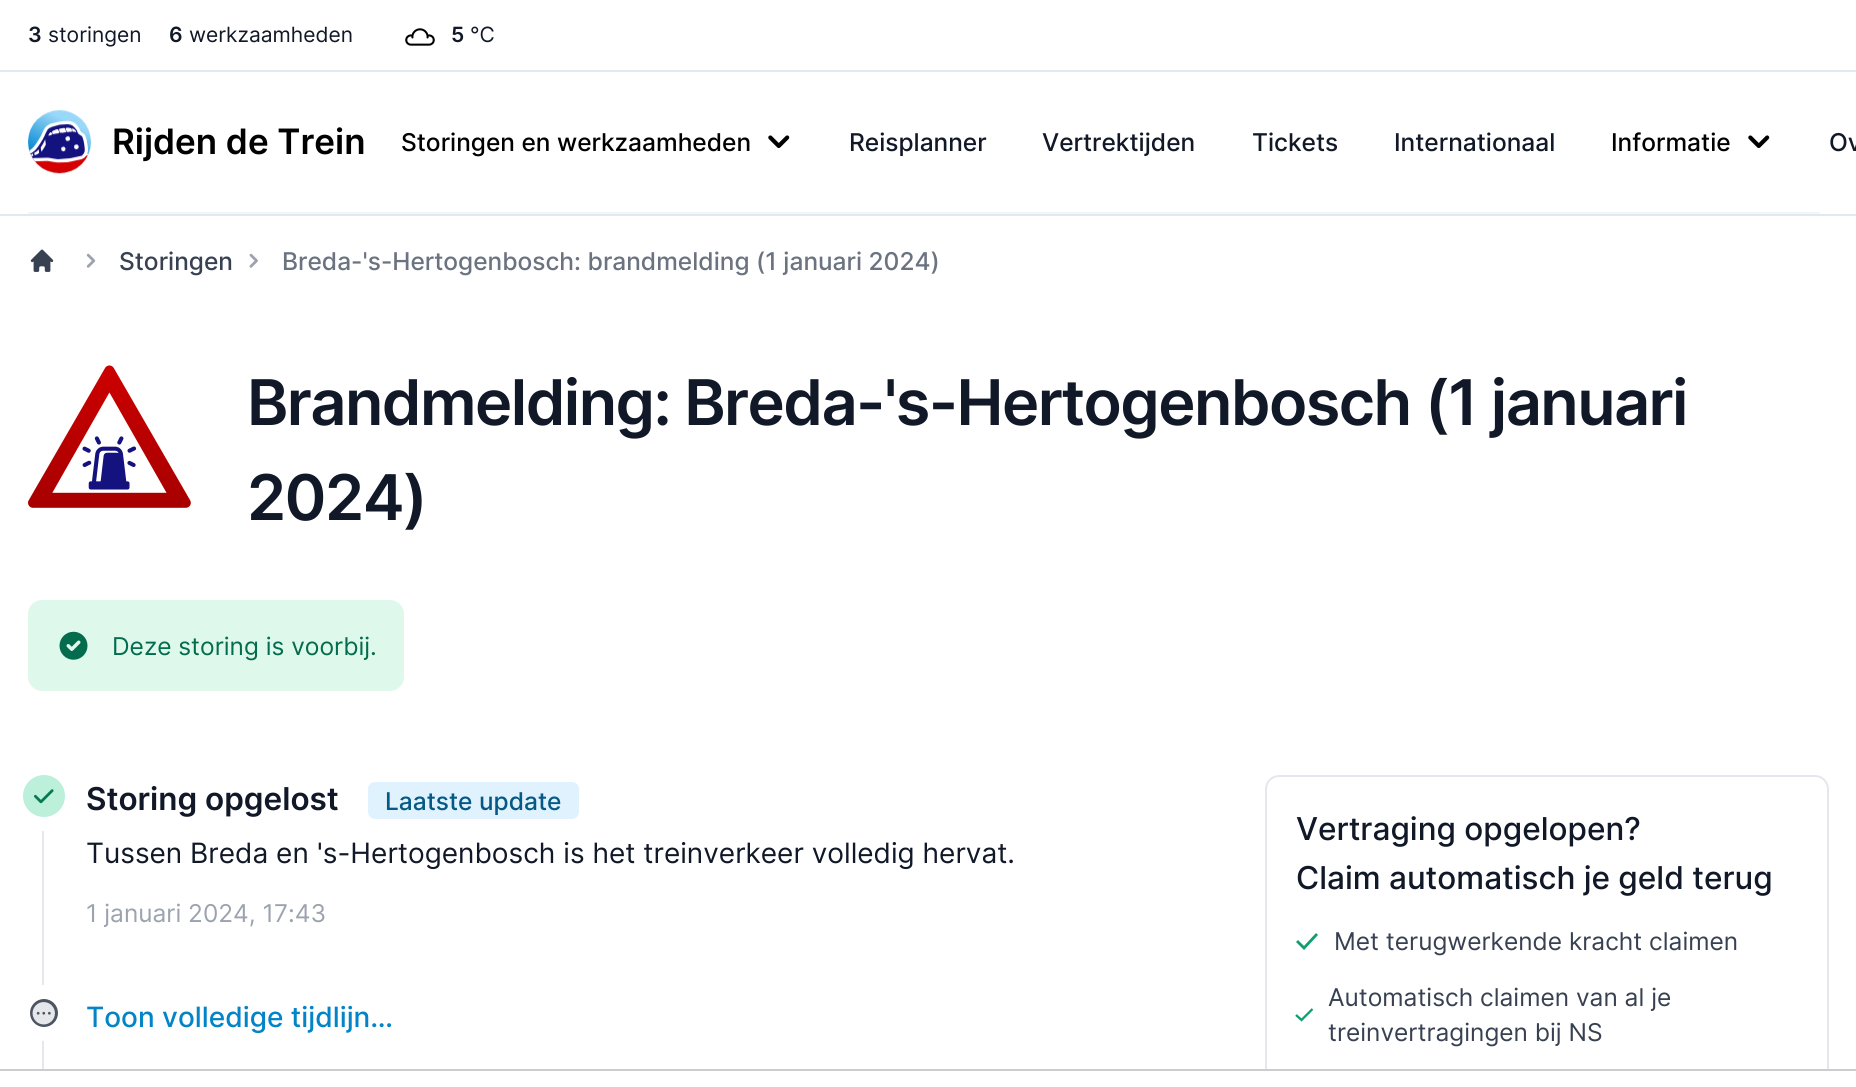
#include <cairo.h>
#include <math.h>
#include <stddef.h>


static void spaced_text(cairo_t *cr, double x, double y, const char *s, double letter, double word) {
    cairo_move_to(cr, x, y);
    while (*s) {
        char ch[5] = {0};
        int n = 0;
        do ch[n++] = *s++; while ((*s & 0xC0) == 0x80);
        cairo_show_text(cr, ch);
        cairo_rel_move_to(cr, letter + word * (*ch == ' '), 0);
    }
}

static void round_rect(cairo_t *cr, double x, double y, double w, double h, double r) {
    cairo_new_sub_path(cr);
    cairo_arc(cr, x + w - r, y + h - r, r, 0, M_PI / 2);
    cairo_arc(cr, x + r, y + h - r, r, M_PI / 2, M_PI);
    cairo_arc(cr, x + r, y + r, r, M_PI, 1.5 * M_PI);
    cairo_arc(cr, x + w - r, y + r, r, 1.5 * M_PI, 2 * M_PI);
    cairo_close_path(cr);
}

static void picture(cairo_t *cr, const char *path, double x, double y, double w, double h) {
    cairo_surface_t *image = cairo_image_surface_create_from_png(path);
    cairo_save(cr);
    cairo_set_source_surface(cr, image, x, y);
    cairo_rectangle(cr, x, y, w, h);
    cairo_fill(cr);
    cairo_restore(cr);
    cairo_surface_destroy(image);
}

int main(void) {
    cairo_surface_t *surface = cairo_image_surface_create(CAIRO_FORMAT_RGB24, 1856, 1087);
    cairo_t *cr = cairo_create(surface);
    cairo_font_options_t *options = cairo_font_options_create();
    cairo_font_options_set_hint_metrics(options, CAIRO_HINT_METRICS_OFF);
    cairo_font_options_set_hint_style(options, CAIRO_HINT_STYLE_NONE);
    cairo_set_font_options(cr, options);
    cairo_set_miter_limit(cr, 4);
    cairo_set_source_rgb(cr, 1, 1, 1);
    cairo_paint(cr);
    cairo_set_source_rgb(cr, 0.886, 0.91, 0.941);
    cairo_rectangle(cr, 0, 70, 1856, 2);
    cairo_fill(cr);
    cairo_select_font_face(cr, "Inter SemiBold", CAIRO_FONT_SLANT_NORMAL, CAIRO_FONT_WEIGHT_NORMAL);
    cairo_set_font_size(cr, 21);
    cairo_set_source_rgb(cr, 0.067, 0.094, 0.153);
    cairo_move_to(cr, 28, 42);
    cairo_show_text(cr, "3");
    cairo_select_font_face(cr, "Inter", CAIRO_FONT_SLANT_NORMAL, CAIRO_FONT_WEIGHT_NORMAL);
    cairo_move_to(cr, 48, 42);
    cairo_show_text(cr, "storingen");
    cairo_select_font_face(cr, "Inter SemiBold", CAIRO_FONT_SLANT_NORMAL, CAIRO_FONT_WEIGHT_NORMAL);
    cairo_move_to(cr, 169, 42);
    cairo_show_text(cr, "6");
    cairo_select_font_face(cr, "Inter", CAIRO_FONT_SLANT_NORMAL, CAIRO_FONT_WEIGHT_NORMAL);
    cairo_move_to(cr, 189, 42);
    cairo_show_text(cr, "werkzaamheden");
    picture(cr, "img1.png", 405, 28, 30, 18);
    cairo_select_font_face(cr, "Inter SemiBold", CAIRO_FONT_SLANT_NORMAL, CAIRO_FONT_WEIGHT_NORMAL);
    cairo_move_to(cr, 451, 42);
    cairo_show_text(cr, "5");
    cairo_select_font_face(cr, "Inter", CAIRO_FONT_SLANT_NORMAL, CAIRO_FONT_WEIGHT_NORMAL);
    cairo_move_to(cr, 470, 42);
    cairo_show_text(cr, "°C");
    cairo_set_source_rgb(cr, 0.945, 0.961, 0.976);
    cairo_rectangle(cr, 28, 212, 1792, 2);
    cairo_fill(cr);
    picture(cr, "img2.png", 28, 110, 63, 64);
    cairo_select_font_face(cr, "Inter SemiBold", CAIRO_FONT_SLANT_NORMAL, CAIRO_FONT_WEIGHT_NORMAL);
    cairo_set_font_size(cr, 35);
    cairo_set_source_rgb(cr, 0, 0, 0);
    cairo_move_to(cr, 112, 154);
    cairo_show_text(cr, "Rijden de Trein");
    cairo_select_font_face(cr, "Inter Medium", CAIRO_FONT_SLANT_NORMAL, CAIRO_FONT_WEIGHT_NORMAL);
    cairo_set_font_size(cr, 24.5);
    cairo_move_to(cr, 401, 151);
    cairo_show_text(cr, "Storingen en werkzaamheden");
    picture(cr, "img3.png", 768, 135, 22, 13);
    cairo_set_source_rgb(cr, 0.067, 0.094, 0.153);
    cairo_move_to(cr, 849, 151);
    cairo_show_text(cr, "Reisplanner");
    cairo_move_to(cr, 1042, 151);
    cairo_show_text(cr, "Vertrektijden");
    cairo_move_to(cr, 1252, 151);
    cairo_show_text(cr, "Tickets");
    cairo_move_to(cr, 1394, 151);
    cairo_show_text(cr, "Internationaal");
    cairo_set_source_rgb(cr, 0, 0, 0);
    cairo_move_to(cr, 1611, 151);
    cairo_show_text(cr, "Informatie");
    picture(cr, "img3.png", 1748, 135, 22, 13);
    cairo_set_source_rgb(cr, 0.067, 0.094, 0.153);
    cairo_move_to(cr, 1829, 151);
    cairo_show_text(cr, "Ov");
    cairo_set_source_rgb(cr, 0.886, 0.91, 0.941);
    cairo_rectangle(cr, 0, 214, 1856, 2);
    cairo_fill(cr);
    picture(cr, "img4.png", 30, 249, 24, 23);
    picture(cr, "img5.png", 86, 253, 10, 15);
    cairo_set_source_rgb(cr, 0.216, 0.255, 0.318);
    cairo_move_to(cr, 119, 270);
    cairo_show_text(cr, "Storingen");
    picture(cr, "img6.png", 249, 253, 9, 15);
    cairo_set_source_rgb(cr, 0.42, 0.447, 0.502);
    cairo_move_to(cr, 282, 270);
    cairo_show_text(cr, "Breda-'s-Hertogenbosch: brandmelding (1 januari 2024)");
    picture(cr, "img7.png", 28, 365, 163, 143);
    cairo_select_font_face(cr, "Inter SemiBold", CAIRO_FONT_SLANT_NORMAL, CAIRO_FONT_WEIGHT_NORMAL);
    cairo_set_font_size(cr, 63);
    cairo_set_source_rgb(cr, 0.067, 0.094, 0.153);
    spaced_text(cr, 247, 425, "Brandmelding: Breda-'s-Hertogenbosch (1 januari", -1.55, 0);
    spaced_text(cr, 247, 520, "2024)", -1.55, 0);
    cairo_set_source_rgb(cr, 0.871, 0.969, 0.925);
    round_rect(cr, 28, 600, 376, 91, 14);
    cairo_fill(cr);
    picture(cr, "img8.png", 59, 631, 29, 29);
    cairo_select_font_face(cr, "Inter", CAIRO_FONT_SLANT_NORMAL, CAIRO_FONT_WEIGHT_NORMAL);
    cairo_set_font_size(cr, 24.5);
    cairo_set_source_rgb(cr, 0.016, 0.424, 0.306);
    cairo_move_to(cr, 112, 655);
    cairo_show_text(cr, "Deze storing is voorbij.");
    cairo_set_source_rgb(cr, 0.898, 0.906, 0.922);
    cairo_rectangle(cr, 42, 775, 2, 294);
    cairo_fill(cr);
    cairo_arc(cr, 44, 796, 28, 0, 2 * M_PI);
    cairo_set_source_rgb(cr, 1, 1, 1);
    cairo_set_line_width(cr, 14);
    cairo_stroke(cr);
    cairo_set_source_rgb(cr, 0.737, 0.941, 0.855);
    cairo_arc(cr, 44, 796, 21, 0, 2 * M_PI);
    cairo_fill(cr);
    picture(cr, "img9.png", 34, 789, 20, 15);
    cairo_select_font_face(cr, "Inter SemiBold", CAIRO_FONT_SLANT_NORMAL, CAIRO_FONT_WEIGHT_NORMAL);
    cairo_set_font_size(cr, 31.5);
    cairo_set_source_rgb(cr, 0.067, 0.094, 0.153);
    cairo_move_to(cr, 86, 810);
    cairo_show_text(cr, "Storing opgelost");
    cairo_set_source_rgb(cr, 0.878, 0.949, 0.996);
    round_rect(cr, 368, 782, 211, 37, 7);
    cairo_fill(cr);
    cairo_select_font_face(cr, "Inter Medium", CAIRO_FONT_SLANT_NORMAL, CAIRO_FONT_WEIGHT_NORMAL);
    cairo_set_font_size(cr, 24.5);
    cairo_set_source_rgb(cr, 0.027, 0.349, 0.522);
    cairo_move_to(cr, 385, 810);
    cairo_show_text(cr, "Laatste update");
    cairo_select_font_face(cr, "Inter", CAIRO_FONT_SLANT_NORMAL, CAIRO_FONT_WEIGHT_NORMAL);
    cairo_set_font_size(cr, 28);
    cairo_set_source_rgb(cr, 0.067, 0.094, 0.153);
    cairo_move_to(cr, 86, 863);
    cairo_show_text(cr, "Tussen Breda en 's-Hertogenbosch is het treinverkeer volledig hervat.");
    cairo_set_font_size(cr, 24.5);
    cairo_set_source_rgb(cr, 0.612, 0.639, 0.686);
    cairo_move_to(cr, 86, 922);
    cairo_show_text(cr, "1 januari 2024, 17:43");
    cairo_new_path(cr);
    cairo_arc(cr, 44, 1013, 21, 0, 2 * M_PI);
    cairo_set_source_rgb(cr, 1, 1, 1);
    cairo_stroke(cr);
    cairo_set_source_rgb(cr, 0.294, 0.333, 0.388);
    cairo_arc(cr, 44, 1013, 14, 0, 2 * M_PI);
    cairo_fill(cr);
    picture(cr, "img10.png", 32, 1002, 23, 23);
    cairo_select_font_face(cr, "Inter Medium", CAIRO_FONT_SLANT_NORMAL, CAIRO_FONT_WEIGHT_NORMAL);
    cairo_set_font_size(cr, 28);
    cairo_set_source_rgb(cr, 0.008, 0.518, 0.78);
    cairo_move_to(cr, 86, 1027);
    cairo_show_text(cr, "Toon volledige tijdlijn…");
    round_rect(cr, 1266, 776, 562, 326, 13);
    cairo_set_source_rgb(cr, 0.898, 0.906, 0.922);
    cairo_set_line_width(cr, 2);
    cairo_stroke(cr);
    cairo_set_font_size(cr, 31.5);
    cairo_set_source_rgb(cr, 0.067, 0.094, 0.153);
    cairo_move_to(cr, 1296, 840);
    cairo_show_text(cr, "Vertraging opgelopen?");
    cairo_move_to(cr, 1296, 889);
    cairo_show_text(cr, "Claim automatisch je geld terug");
    cairo_new_path(cr);
    cairo_move_to(cr, 1297, 941);
    cairo_line_to(cr, 1304, 948);
    cairo_line_to(cr, 1317, 934);
    cairo_set_source_rgb(cr, 0.055, 0.624, 0.431);
    cairo_set_line_width(cr, 2.8);
    cairo_stroke(cr);
    cairo_select_font_face(cr, "Inter", CAIRO_FONT_SLANT_NORMAL, CAIRO_FONT_WEIGHT_NORMAL);
    cairo_set_font_size(cr, 24.5);
    cairo_set_source_rgb(cr, 0.216, 0.255, 0.318);
    cairo_move_to(cr, 1334, 950);
    cairo_show_text(cr, "Met terugwerkende kracht claimen");
    cairo_new_path(cr);
    cairo_move_to(cr, 1296, 1015);
    cairo_line_to(cr, 1301.5, 1020);
    cairo_line_to(cr, 1312.5, 1009);
    cairo_set_source_rgb(cr, 0.055, 0.624, 0.431);
    cairo_set_line_width(cr, 2.3);
    cairo_stroke(cr);
    cairo_set_source_rgb(cr, 0.216, 0.255, 0.318);
    cairo_move_to(cr, 1328, 1006);
    cairo_show_text(cr, "Automatisch claimen van al je");
    cairo_move_to(cr, 1328, 1041);
    cairo_show_text(cr, "treinvertragingen bij NS");
    cairo_set_source_rgb(cr, 1, 1, 1);
    cairo_rectangle(cr, 1265, 1071, 564, 16);
    cairo_fill(cr);
    cairo_set_source_rgb(cr, 0.8, 0.8, 0.8);
    cairo_rectangle(cr, 0, 1069, 1856, 2);
    cairo_fill(cr);
    cairo_surface_write_to_png(surface, "page.png");
    cairo_font_options_destroy(options);
    cairo_destroy(cr);
    cairo_surface_destroy(surface);
    return 0;
}
